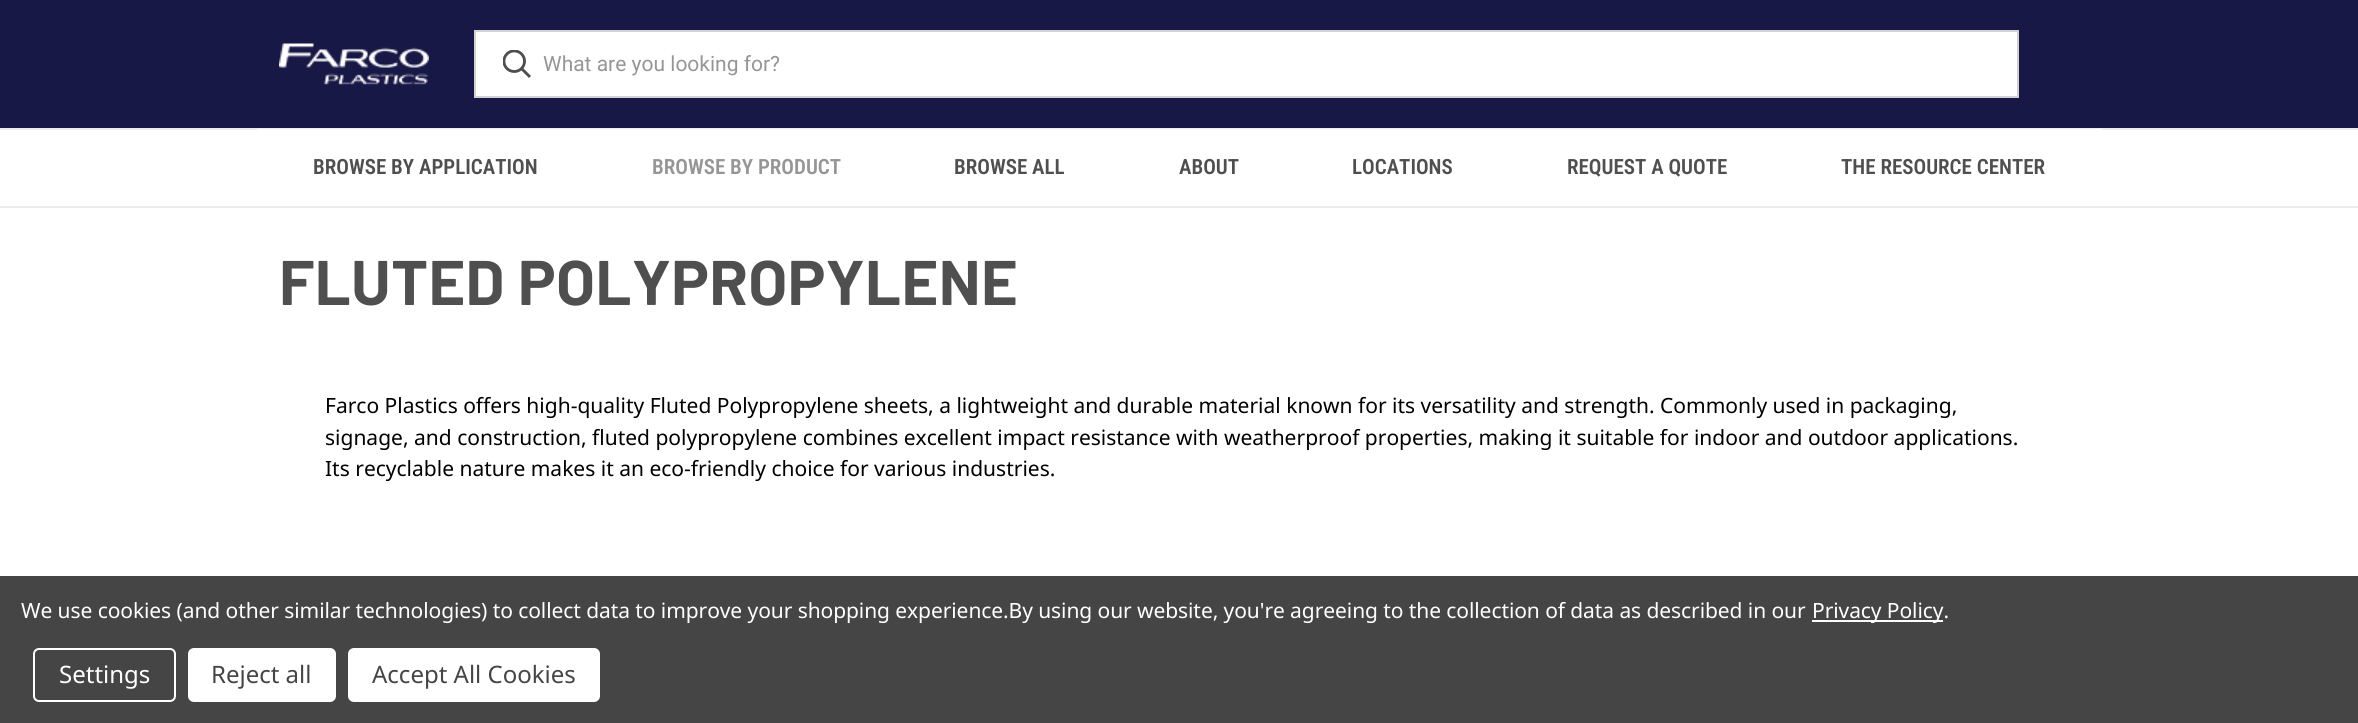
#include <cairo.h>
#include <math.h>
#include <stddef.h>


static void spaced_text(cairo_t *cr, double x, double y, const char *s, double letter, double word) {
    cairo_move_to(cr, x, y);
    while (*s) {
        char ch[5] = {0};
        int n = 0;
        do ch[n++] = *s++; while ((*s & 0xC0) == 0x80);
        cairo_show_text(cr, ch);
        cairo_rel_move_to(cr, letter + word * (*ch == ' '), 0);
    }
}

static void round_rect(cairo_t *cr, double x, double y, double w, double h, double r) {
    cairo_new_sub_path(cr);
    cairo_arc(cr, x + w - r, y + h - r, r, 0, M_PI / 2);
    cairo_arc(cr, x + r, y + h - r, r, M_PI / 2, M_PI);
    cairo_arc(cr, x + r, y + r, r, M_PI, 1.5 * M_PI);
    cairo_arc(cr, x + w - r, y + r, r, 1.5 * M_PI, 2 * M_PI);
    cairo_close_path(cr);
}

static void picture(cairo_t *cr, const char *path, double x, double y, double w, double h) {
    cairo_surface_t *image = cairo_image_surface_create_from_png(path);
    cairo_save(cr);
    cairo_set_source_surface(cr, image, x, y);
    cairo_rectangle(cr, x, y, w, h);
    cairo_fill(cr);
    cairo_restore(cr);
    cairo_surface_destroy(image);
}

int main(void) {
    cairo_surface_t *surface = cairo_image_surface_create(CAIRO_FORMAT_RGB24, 2358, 723);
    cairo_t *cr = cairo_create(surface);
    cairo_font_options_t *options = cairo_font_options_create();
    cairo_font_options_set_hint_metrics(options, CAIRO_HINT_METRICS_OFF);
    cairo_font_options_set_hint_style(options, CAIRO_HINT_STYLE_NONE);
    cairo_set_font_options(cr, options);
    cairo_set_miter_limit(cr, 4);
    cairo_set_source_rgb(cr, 1, 1, 1);
    cairo_paint(cr);
    cairo_set_source_rgb(cr, 0.094, 0.094, 0.278);
    cairo_rectangle(cr, 0, 0, 2358, 128);
    cairo_fill(cr);
    picture(cr, "img1.png", 279, 43, 150, 42);
    cairo_set_source_rgb(cr, 1, 1, 1);
    cairo_rectangle(cr, 475, 31, 1543, 66);
    cairo_fill_preserve(cr);
    cairo_set_source_rgb(cr, 0.824, 0.824, 0.824);
    cairo_stroke(cr);
    picture(cr, "img2.png", 503, 50, 28, 28);
    cairo_select_font_face(cr, "Roboto", CAIRO_FONT_SLANT_NORMAL, CAIRO_FONT_WEIGHT_NORMAL);
    cairo_set_font_size(cr, 21);
    cairo_set_source_rgb(cr, 0.588, 0.588, 0.588);
    cairo_move_to(cr, 543, 71);
    cairo_show_text(cr, "What are you looking for?");
    cairo_set_source_rgb(cr, 0.922, 0.922, 0.922);
    cairo_rectangle(cr, 0, 128, 2358, 2);
    cairo_fill(cr);
    cairo_rectangle(cr, 0, 206, 2358, 2);
    cairo_fill(cr);
    cairo_set_source_rgb(cr, 1, 1, 1);
    cairo_rectangle(cr, 257, 129, 1845, 1);
    cairo_fill(cr);
    cairo_select_font_face(cr, "Roboto Condensed SemiBold", CAIRO_FONT_SLANT_NORMAL, CAIRO_FONT_WEIGHT_NORMAL);
    cairo_set_source_rgb(cr, 0.31, 0.31, 0.31);
    cairo_move_to(cr, 313, 174);
    cairo_show_text(cr, "BROWSE BY APPLICATION");
    cairo_set_source_rgb(cr, 0.588, 0.588, 0.588);
    cairo_move_to(cr, 652, 174);
    cairo_show_text(cr, "BROWSE BY PRODUCT");
    cairo_set_source_rgb(cr, 0.31, 0.31, 0.31);
    cairo_move_to(cr, 954, 174);
    cairo_show_text(cr, "BROWSE ALL");
    cairo_move_to(cr, 1179, 174);
    cairo_show_text(cr, "ABOUT");
    cairo_move_to(cr, 1352, 174);
    cairo_show_text(cr, "LOCATIONS");
    cairo_move_to(cr, 1567, 174);
    cairo_show_text(cr, "REQUEST A QUOTE");
    cairo_move_to(cr, 1841, 174);
    cairo_show_text(cr, "THE RESOURCE CENTER");
    cairo_select_font_face(cr, "Barlow", CAIRO_FONT_SLANT_NORMAL, CAIRO_FONT_WEIGHT_BOLD);
    cairo_set_font_size(cr, 63);
    spaced_text(cr, 279, 305, "FLUTED POLYPROPYLENE", 0.4, 0);
    cairo_select_font_face(cr, "Noto Sans", CAIRO_FONT_SLANT_NORMAL, CAIRO_FONT_WEIGHT_NORMAL);
    cairo_set_font_size(cr, 21);
    cairo_set_source_rgb(cr, 0, 0, 0);
    cairo_move_to(cr, 325, 413);
    cairo_show_text(cr, "Farco Plastics offers high-quality Fluted Polypropylene sheets, a lightweight and durable material known for its versatility and strength. Commonly used in packaging,");
    cairo_move_to(cr, 325, 445);
    cairo_show_text(cr, "signage, and construction, fluted polypropylene combines excellent impact resistance with weatherproof properties, making it suitable for indoor and outdoor applications.");
    cairo_move_to(cr, 325, 476);
    cairo_show_text(cr, "Its recyclable nature makes it an eco-friendly choice for various industries.");
    cairo_set_source_rgb(cr, 0.271, 0.271, 0.271);
    cairo_rectangle(cr, 0, 576, 2358, 147);
    cairo_fill(cr);
    cairo_set_source_rgb(cr, 1, 1, 1);
    spaced_text(cr, 21, 618, "We use cookies (and other similar technologies) to collect data to improve your shopping experience.By using our website, you're agreeing to the collection of data as described in our", -0.08, 0);
    cairo_rectangle(cr, 1812, 620, 131, 2);
    cairo_fill(cr);
    spaced_text(cr, 1812, 618, "Privacy Policy.", -0.08, 0);
    round_rect(cr, 34, 649, 141, 52, 5);
    cairo_stroke(cr);
    cairo_set_font_size(cr, 24);
    cairo_move_to(cr, 59, 683);
    cairo_show_text(cr, "Settings");
    round_rect(cr, 188, 648, 148, 54, 6);
    cairo_fill(cr);
    cairo_set_source_rgb(cr, 0.271, 0.271, 0.271);
    cairo_move_to(cr, 211, 683);
    cairo_show_text(cr, "Reject all");
    cairo_set_source_rgb(cr, 1, 1, 1);
    round_rect(cr, 348, 648, 252, 54, 6);
    cairo_fill(cr);
    cairo_set_source_rgb(cr, 0.271, 0.271, 0.271);
    cairo_move_to(cr, 372, 683);
    cairo_show_text(cr, "Accept All Cookies");
    cairo_surface_write_to_png(surface, "page.png");
    cairo_font_options_destroy(options);
    cairo_destroy(cr);
    cairo_surface_destroy(surface);
    return 0;
}
